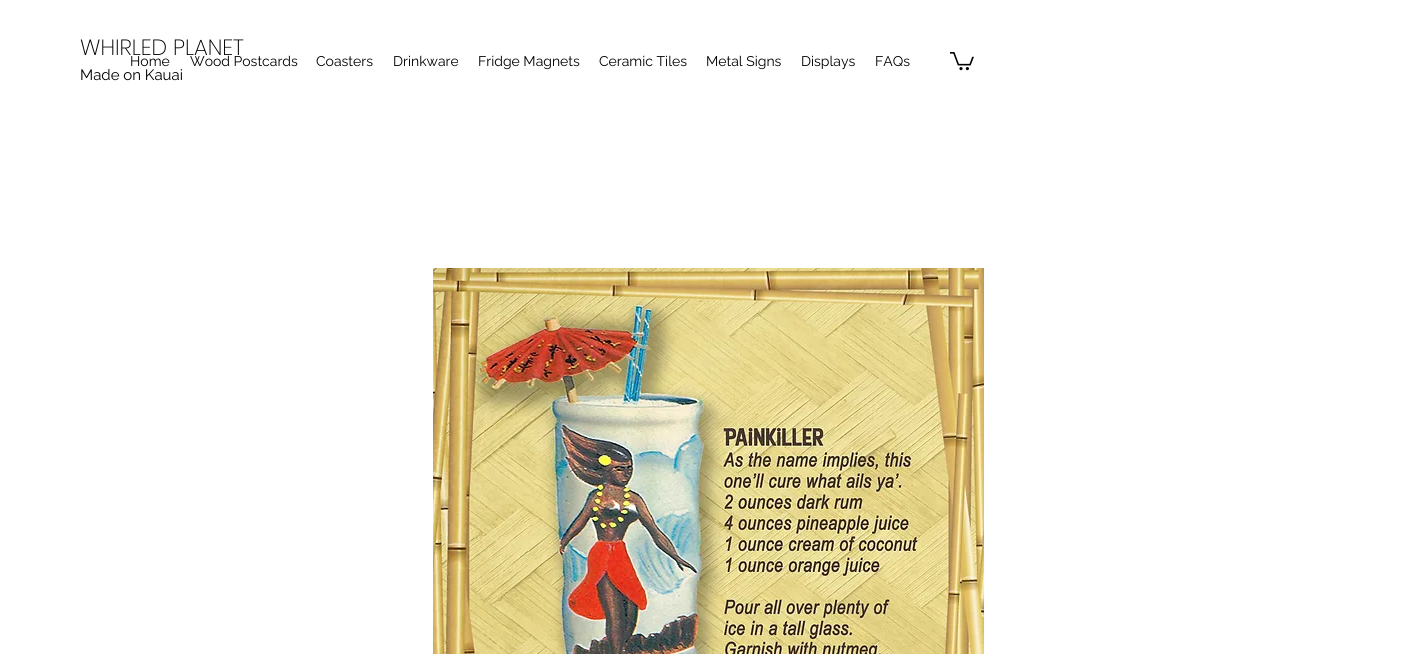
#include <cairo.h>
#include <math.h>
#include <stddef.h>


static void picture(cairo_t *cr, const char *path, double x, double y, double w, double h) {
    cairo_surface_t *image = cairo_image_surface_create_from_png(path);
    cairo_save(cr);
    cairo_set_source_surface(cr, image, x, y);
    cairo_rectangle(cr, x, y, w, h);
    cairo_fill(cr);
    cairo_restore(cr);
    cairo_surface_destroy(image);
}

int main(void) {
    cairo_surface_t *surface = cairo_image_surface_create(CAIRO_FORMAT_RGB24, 1416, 654);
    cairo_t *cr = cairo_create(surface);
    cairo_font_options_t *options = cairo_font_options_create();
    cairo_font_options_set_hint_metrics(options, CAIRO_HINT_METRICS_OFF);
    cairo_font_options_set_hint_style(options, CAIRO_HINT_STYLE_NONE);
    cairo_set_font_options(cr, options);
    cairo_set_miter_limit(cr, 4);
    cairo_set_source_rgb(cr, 1, 1, 1);
    cairo_paint(cr);
    cairo_select_font_face(cr, "Poppins ExtraLight", CAIRO_FONT_SLANT_NORMAL, CAIRO_FONT_WEIGHT_NORMAL);
    cairo_set_font_size(cr, 22);
    cairo_set_source_rgb(cr, 0, 0, 0);
    cairo_move_to(cr, 80, 55);
    cairo_show_text(cr, "WHIRLED PLANET");
    cairo_select_font_face(cr, "Raleway", CAIRO_FONT_SLANT_NORMAL, CAIRO_FONT_WEIGHT_NORMAL);
    cairo_set_font_size(cr, 15);
    cairo_move_to(cr, 80, 80);
    cairo_show_text(cr, "Made on Kauai");
    cairo_set_font_size(cr, 14);
    cairo_move_to(cr, 130, 66);
    cairo_show_text(cr, "Home");
    cairo_move_to(cr, 190, 66);
    cairo_show_text(cr, "Wood Postcards");
    cairo_move_to(cr, 316, 66);
    cairo_show_text(cr, "Coasters");
    cairo_move_to(cr, 393, 66);
    cairo_show_text(cr, "Drinkware");
    cairo_move_to(cr, 478, 66);
    cairo_show_text(cr, "Fridge Magnets");
    cairo_move_to(cr, 599, 66);
    cairo_show_text(cr, "Ceramic Tiles");
    cairo_move_to(cr, 706, 66);
    cairo_show_text(cr, "Metal Signs");
    cairo_move_to(cr, 801, 66);
    cairo_show_text(cr, "Displays");
    cairo_move_to(cr, 875, 66);
    cairo_show_text(cr, "FAQs");
    picture(cr, "img1.png", 950, 52, 24, 19);
    picture(cr, "img2.png", 433, 268, 551, 386);
    cairo_surface_write_to_png(surface, "page.png");
    cairo_font_options_destroy(options);
    cairo_destroy(cr);
    cairo_surface_destroy(surface);
    return 0;
}
